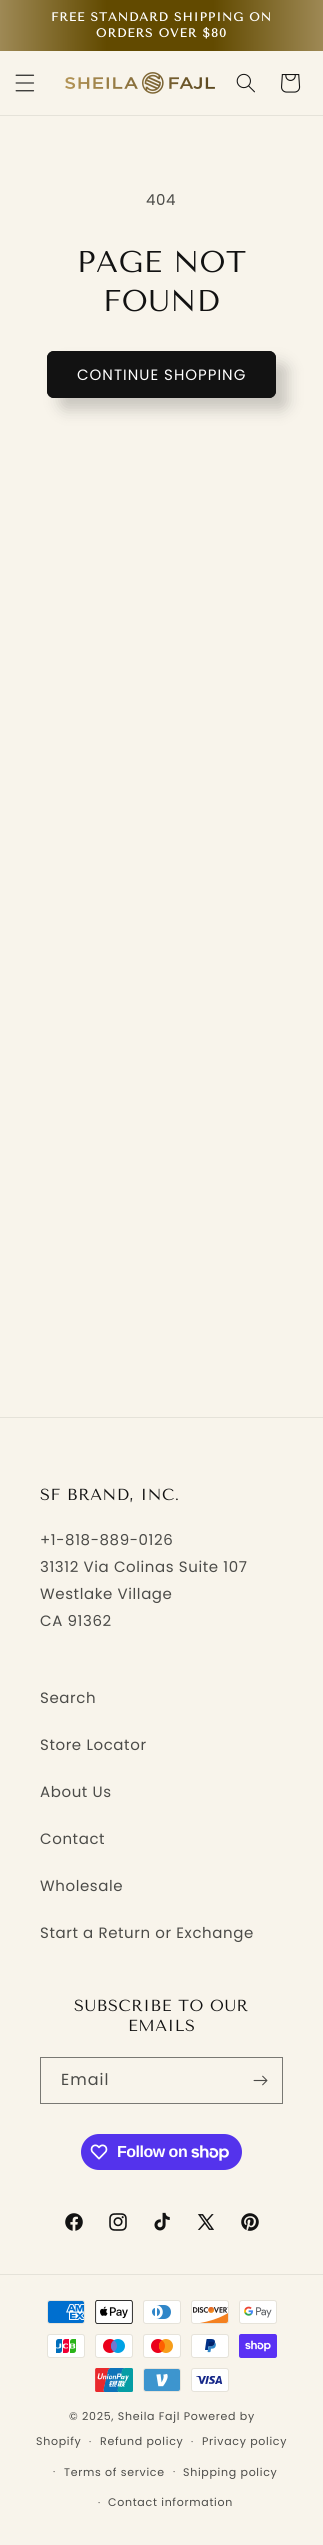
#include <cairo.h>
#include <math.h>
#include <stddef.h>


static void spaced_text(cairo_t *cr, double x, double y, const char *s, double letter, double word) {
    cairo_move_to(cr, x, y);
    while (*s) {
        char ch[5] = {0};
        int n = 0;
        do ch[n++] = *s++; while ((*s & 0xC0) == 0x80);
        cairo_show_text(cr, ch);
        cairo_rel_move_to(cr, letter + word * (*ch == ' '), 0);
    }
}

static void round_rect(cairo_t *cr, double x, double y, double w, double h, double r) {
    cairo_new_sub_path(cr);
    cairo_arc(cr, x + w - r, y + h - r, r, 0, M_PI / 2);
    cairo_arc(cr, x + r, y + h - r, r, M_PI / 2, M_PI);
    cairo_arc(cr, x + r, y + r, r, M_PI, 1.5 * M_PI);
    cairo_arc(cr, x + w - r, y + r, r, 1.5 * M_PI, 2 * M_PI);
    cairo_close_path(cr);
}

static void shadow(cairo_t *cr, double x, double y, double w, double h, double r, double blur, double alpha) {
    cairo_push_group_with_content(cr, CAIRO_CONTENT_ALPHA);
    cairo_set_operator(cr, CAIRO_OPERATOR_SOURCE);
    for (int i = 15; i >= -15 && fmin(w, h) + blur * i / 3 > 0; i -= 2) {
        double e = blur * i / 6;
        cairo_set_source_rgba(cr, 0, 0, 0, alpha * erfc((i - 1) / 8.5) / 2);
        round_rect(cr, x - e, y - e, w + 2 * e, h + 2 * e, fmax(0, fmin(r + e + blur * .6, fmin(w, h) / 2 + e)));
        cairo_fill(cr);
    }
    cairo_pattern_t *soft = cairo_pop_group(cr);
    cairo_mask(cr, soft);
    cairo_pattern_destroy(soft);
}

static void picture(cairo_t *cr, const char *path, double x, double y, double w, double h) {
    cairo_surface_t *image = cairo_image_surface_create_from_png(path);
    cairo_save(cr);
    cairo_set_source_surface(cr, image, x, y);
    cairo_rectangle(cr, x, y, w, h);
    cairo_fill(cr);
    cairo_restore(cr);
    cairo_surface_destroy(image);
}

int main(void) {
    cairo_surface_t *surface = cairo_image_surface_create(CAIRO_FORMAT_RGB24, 323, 2545);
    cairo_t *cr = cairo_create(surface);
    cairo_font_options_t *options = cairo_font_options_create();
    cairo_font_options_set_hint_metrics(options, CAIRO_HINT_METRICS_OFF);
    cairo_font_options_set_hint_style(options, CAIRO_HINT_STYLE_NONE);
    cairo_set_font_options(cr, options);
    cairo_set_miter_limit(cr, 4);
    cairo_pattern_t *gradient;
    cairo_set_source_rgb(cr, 0.969, 0.957, 0.918);
    cairo_paint(cr);
    gradient = cairo_pattern_create_linear(0, 1273, 323, 1273);
    cairo_pattern_add_color_stop_rgba(gradient, 0, 0.62, 0.537, 0.333, 1);
    cairo_pattern_add_color_stop_rgba(gradient, 0.33, 0.384, 0.29, 0, 1);
    cairo_pattern_add_color_stop_rgba(gradient, 0.66, 0.384, 0.29, 0, 1);
    cairo_pattern_add_color_stop_rgba(gradient, 1, 0.62, 0.537, 0.333, 1);
    cairo_set_source(cr, gradient);
    cairo_pattern_destroy(gradient);
    cairo_rectangle(cr, 0, 0, 323, 51);
    cairo_fill(cr);
    cairo_select_font_face(cr, "Tenor Sans", CAIRO_FONT_SLANT_NORMAL, CAIRO_FONT_WEIGHT_BOLD);
    cairo_set_font_size(cr, 12);
    cairo_set_source_rgb(cr, 1, 1, 1);
    spaced_text(cr, 51, 21, "FREE STANDARD SHIPPING ON", 1, 0);
    spaced_text(cr, 96, 37, "ORDERS OVER $80", 1, 0);
    cairo_set_source_rgb(cr, 0.898, 0.886, 0.851);
    cairo_rectangle(cr, 0, 115, 323, 1);
    cairo_fill(cr);
    picture(cr, "img1.png", 15, 74, 20, 18);
    picture(cr, "img2.png", 65, 72, 150, 22);
    picture(cr, "img3.png", 236, 73, 19, 20);
    picture(cr, "img4.png", 281, 74, 20, 19);
    cairo_select_font_face(cr, "Poppins", CAIRO_FONT_SLANT_NORMAL, CAIRO_FONT_WEIGHT_NORMAL);
    cairo_set_font_size(cr, 15);
    cairo_set_source_rgb(cr, 0.294, 0.294, 0.282);
    spaced_text(cr, 146, 205, "404", 0.6, 0);
    cairo_select_font_face(cr, "Tenor Sans", CAIRO_FONT_SLANT_NORMAL, CAIRO_FONT_WEIGHT_NORMAL);
    cairo_set_font_size(cr, 30);
    cairo_set_source_rgb(cr, 0.071, 0.071, 0.071);
    spaced_text(cr, 77, 272, "PAGE NOT", 0.6, 0);
    spaced_text(cr, 103, 311, "FOUND", 0.6, 0);
    cairo_set_source_rgb(cr, 0.071, 0.071, 0.071);
    shadow(cr, 59, 363, 229, 47, 7, 7.5, 0.2);
    cairo_set_source_rgb(cr, 0.071, 0.071, 0.071);
    round_rect(cr, 47, 351, 229, 47, 7);
    cairo_fill(cr);
    round_rect(cr, 47.5, 351.5, 228, 46, 6.5);
    cairo_set_line_width(cr, 1);
    cairo_stroke(cr);
    cairo_select_font_face(cr, "Poppins", CAIRO_FONT_SLANT_NORMAL, CAIRO_FONT_WEIGHT_NORMAL);
    cairo_set_font_size(cr, 15);
    cairo_set_source_rgb(cr, 1, 1, 1);
    spaced_text(cr, 77, 380, "CONTINUE SHOPPING", 1, 0);
    cairo_set_source_rgb(cr, 0.898, 0.886, 0.851);
    cairo_rectangle(cr, 0, 1417, 323, 1);
    cairo_fill(cr);
    cairo_select_font_face(cr, "Tenor Sans", CAIRO_FONT_SLANT_NORMAL, CAIRO_FONT_WEIGHT_NORMAL);
    cairo_set_font_size(cr, 16);
    cairo_set_source_rgb(cr, 0.071, 0.071, 0.071);
    spaced_text(cr, 40, 1500, "SF BRAND, INC.", 0.6, 0);
    cairo_select_font_face(cr, "Poppins", CAIRO_FONT_SLANT_NORMAL, CAIRO_FONT_WEIGHT_NORMAL);
    cairo_set_font_size(cr, 15);
    cairo_set_source_rgb(cr, 0.294, 0.294, 0.282);
    spaced_text(cr, 40, 1545, "+1-818-889-0126", 0.6, 0);
    spaced_text(cr, 40, 1572, "31312 Via Colinas Suite 107", 0.6, 0);
    spaced_text(cr, 40, 1599, "Westlake Village", 0.6, 0);
    spaced_text(cr, 40, 1626, "CA 91362", 0.6, 0);
    spaced_text(cr, 40, 1703, "Search", 0.6, 0);
    spaced_text(cr, 40, 1750, "Store Locator", 0.6, 0);
    spaced_text(cr, 40, 1797, "About Us", 0.6, 0);
    spaced_text(cr, 40, 1844, "Contact", 0.6, 0);
    spaced_text(cr, 40, 1891, "Wholesale", 0.6, 0);
    spaced_text(cr, 40, 1938, "Start a Return or Exchange", 0.6, 0);
    cairo_select_font_face(cr, "Tenor Sans", CAIRO_FONT_SLANT_NORMAL, CAIRO_FONT_WEIGHT_NORMAL);
    cairo_set_font_size(cr, 16);
    cairo_set_source_rgb(cr, 0.071, 0.071, 0.071);
    spaced_text(cr, 74, 2011, "SUBSCRIBE TO OUR", 0.6, 0);
    spaced_text(cr, 128, 2031, "EMAILS", 0.6, 0);
    cairo_rectangle(cr, 40.5, 2057.5, 242, 46);
    cairo_set_source_rgb(cr, 0.475, 0.471, 0.451);
    cairo_stroke(cr);
    cairo_select_font_face(cr, "Poppins", CAIRO_FONT_SLANT_NORMAL, CAIRO_FONT_WEIGHT_NORMAL);
    cairo_set_source_rgb(cr, 0.294, 0.294, 0.282);
    spaced_text(cr, 61, 2085, "Email", 1, 0);
    picture(cr, "img5.png", 253, 2075, 15, 11);
    cairo_set_source_rgb(cr, 0.329, 0.2, 0.922);
    round_rect(cr, 81, 2134, 161, 36, 18);
    cairo_fill(cr);
    picture(cr, "img6.png", 90, 2144, 18, 16);
    cairo_select_font_face(cr, "Liberation Sans", CAIRO_FONT_SLANT_NORMAL, CAIRO_FONT_WEIGHT_BOLD);
    cairo_set_source_rgb(cr, 1, 1, 1);
    spaced_text(cr, 117, 2157, "Follow on", -0.5, 0);
    picture(cr, "img7.png", 191, 2145, 38, 16);
    picture(cr, "img8.png", 65, 2213, 18, 18);
    picture(cr, "img9.png", 109, 2213, 18, 18);
    picture(cr, "img10.png", 154, 2212, 16, 19);
    picture(cr, "img11.png", 197, 2214, 17, 16);
    picture(cr, "img12.png", 241, 2213, 18, 18);
    cairo_set_source_rgb(cr, 0.898, 0.886, 0.851);
    cairo_rectangle(cr, 0, 2274, 323, 1);
    cairo_fill(cr);
    picture(cr, "img13.png", 47, 2300, 38, 24);
    picture(cr, "img14.png", 95, 2300, 38, 24);
    picture(cr, "img15.png", 143, 2300, 38, 24);
    picture(cr, "img16.png", 191, 2300, 38, 24);
    picture(cr, "img17.png", 239, 2300, 38, 24);
    picture(cr, "img18.png", 47, 2334, 38, 24);
    picture(cr, "img19.png", 95, 2334, 38, 24);
    picture(cr, "img20.png", 143, 2334, 38, 24);
    picture(cr, "img21.png", 191, 2334, 38, 24);
    picture(cr, "img22.png", 239, 2334, 38, 24);
    picture(cr, "img23.png", 95, 2368, 38, 24);
    picture(cr, "img24.png", 143, 2368, 38, 24);
    picture(cr, "img25.png", 191, 2368, 38, 24);
    cairo_select_font_face(cr, "Poppins", CAIRO_FONT_SLANT_NORMAL, CAIRO_FONT_WEIGHT_NORMAL);
    cairo_set_font_size(cr, 11);
    cairo_set_source_rgb(cr, 0.294, 0.294, 0.282);
    spaced_text(cr, 69, 2420, "© 2025, Sheila Fajl Powered by", 0.7, 0);
    spaced_text(cr, 36, 2445, "Shopify", 0.7, 0);
    cairo_set_font_size(cr, 10);
    spaced_text(cr, 89, 2445, "·", 0.7, 0);
    cairo_set_font_size(cr, 11);
    spaced_text(cr, 100, 2445, "Refund policy", 0.7, 0);
    cairo_set_font_size(cr, 10);
    spaced_text(cr, 191, 2445, "·", 0.7, 0);
    cairo_set_font_size(cr, 11);
    spaced_text(cr, 202, 2445, "Privacy policy", 0.7, 0);
    cairo_set_font_size(cr, 10);
    spaced_text(cr, 53, 2475, "·", 0.7, 0);
    cairo_set_font_size(cr, 11);
    spaced_text(cr, 64, 2476, "Terms of service", 0.7, 0);
    cairo_set_font_size(cr, 10);
    spaced_text(cr, 173, 2475, "·", 0.7, 0);
    cairo_set_font_size(cr, 11);
    spaced_text(cr, 183, 2476, "Shipping policy", 0.7, 0);
    cairo_set_font_size(cr, 10);
    spaced_text(cr, 98, 2506, "·", 0.7, 0);
    cairo_set_font_size(cr, 11);
    spaced_text(cr, 108, 2506, "Contact information", 0.7, 0);
    cairo_surface_write_to_png(surface, "page.png");
    cairo_font_options_destroy(options);
    cairo_destroy(cr);
    cairo_surface_destroy(surface);
    return 0;
}
